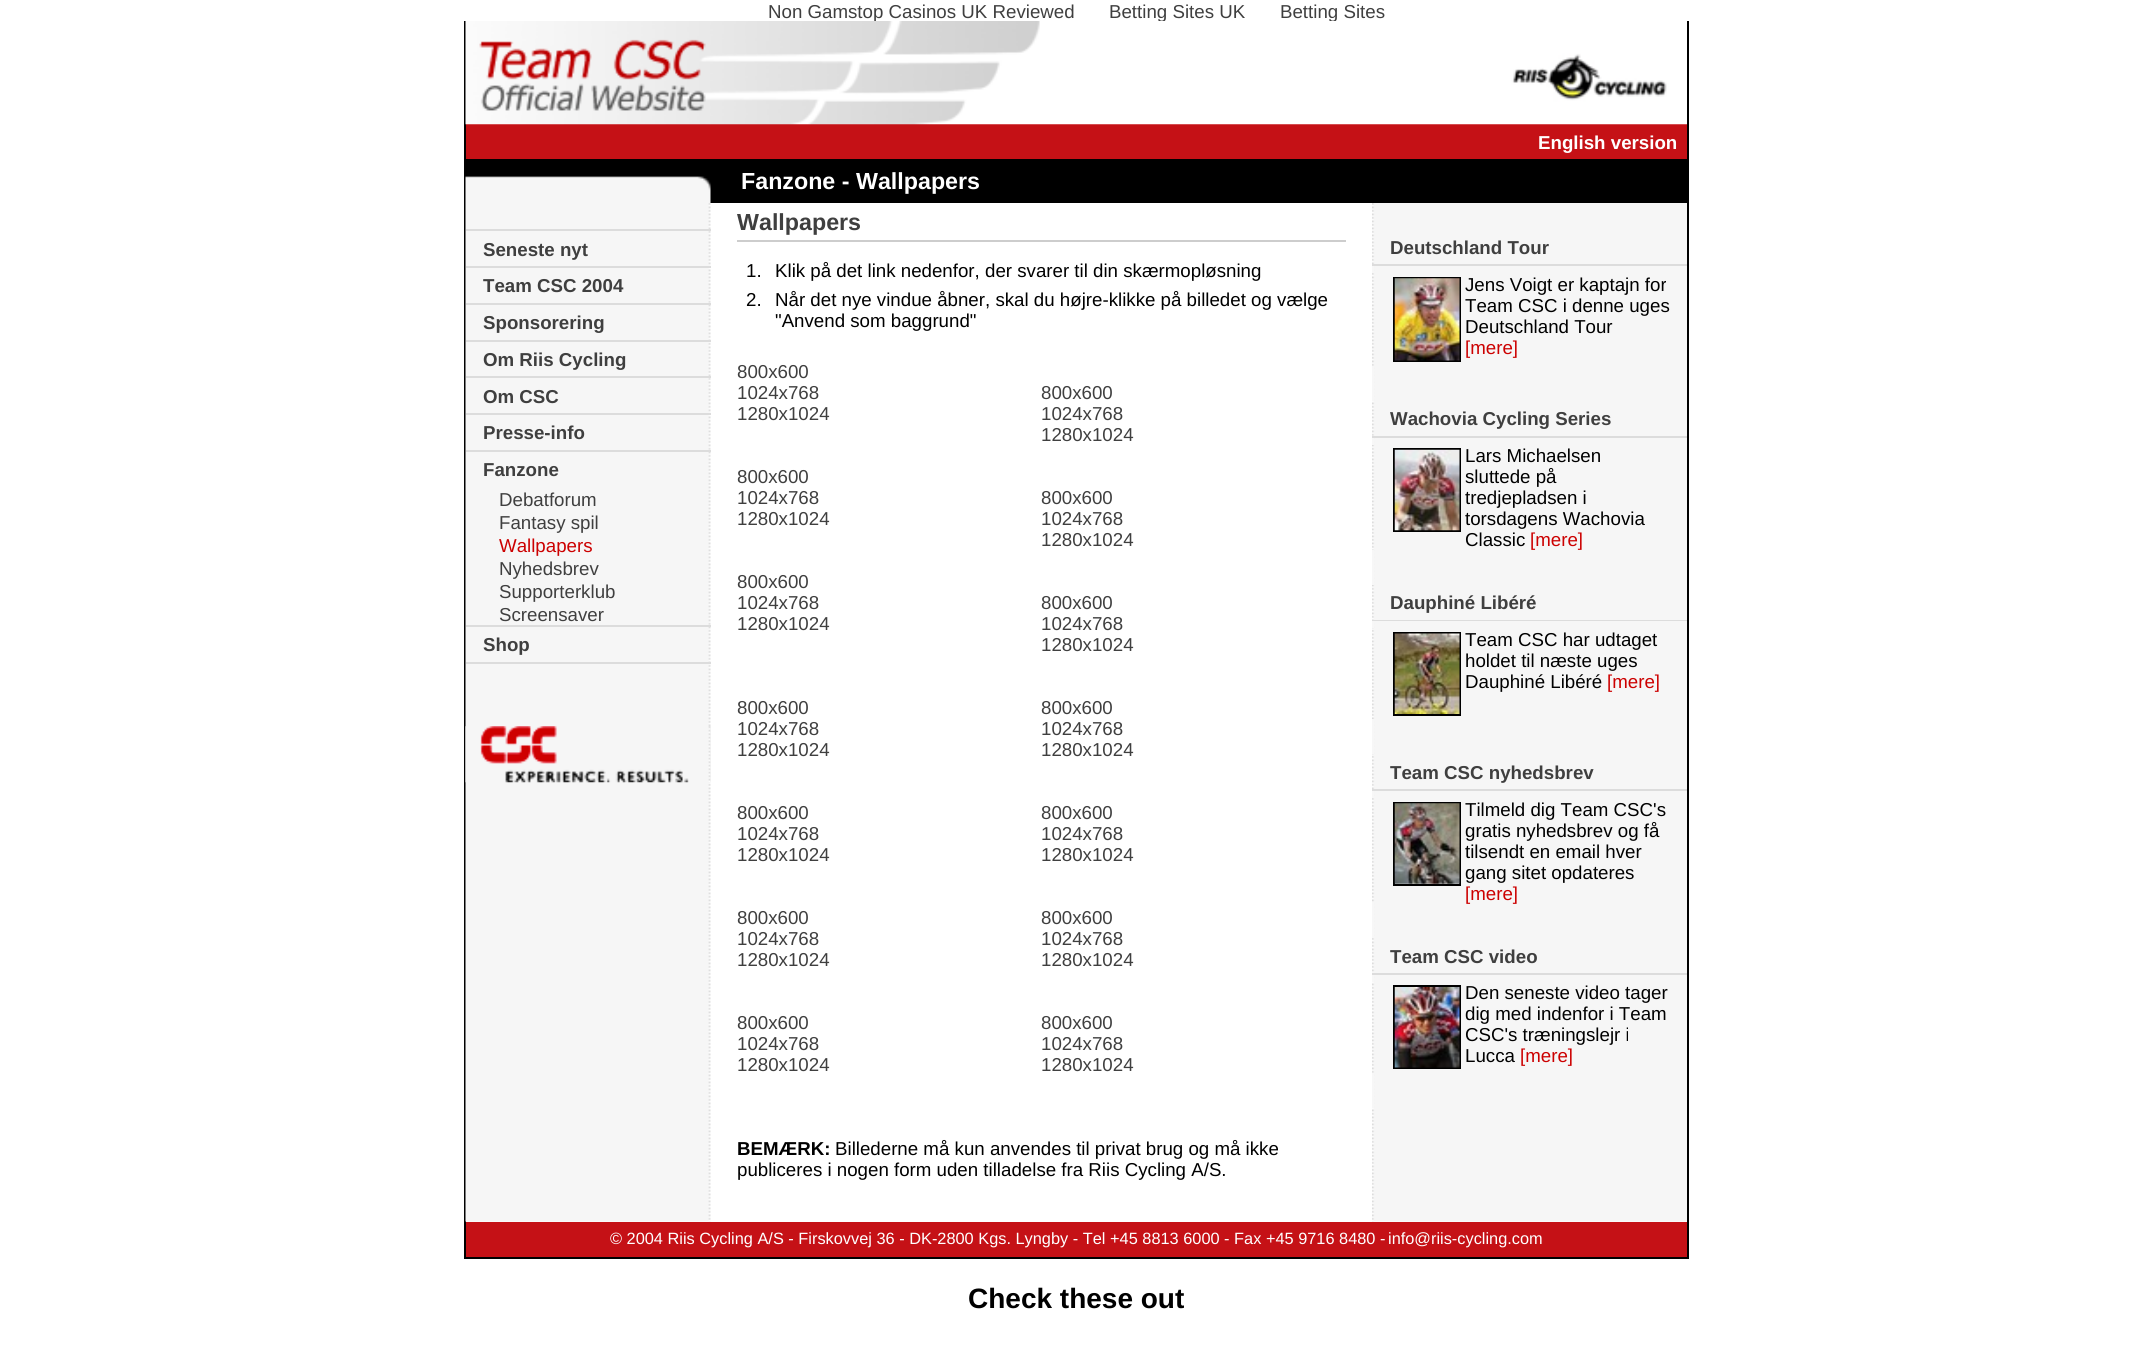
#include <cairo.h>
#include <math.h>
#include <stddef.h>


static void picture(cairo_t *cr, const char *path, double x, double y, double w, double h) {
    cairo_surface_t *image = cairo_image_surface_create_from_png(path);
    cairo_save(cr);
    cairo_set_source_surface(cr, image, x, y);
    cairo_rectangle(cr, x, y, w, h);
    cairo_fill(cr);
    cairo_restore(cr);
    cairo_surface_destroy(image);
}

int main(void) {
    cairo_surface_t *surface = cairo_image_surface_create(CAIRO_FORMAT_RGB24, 2152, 1362);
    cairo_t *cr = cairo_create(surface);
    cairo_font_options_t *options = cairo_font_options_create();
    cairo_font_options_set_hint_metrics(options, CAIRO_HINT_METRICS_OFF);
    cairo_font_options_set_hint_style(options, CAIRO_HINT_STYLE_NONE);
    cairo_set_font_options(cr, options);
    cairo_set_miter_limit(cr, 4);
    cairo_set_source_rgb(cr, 1, 1, 1);
    cairo_paint(cr);
    cairo_select_font_face(cr, "Liberation Sans", CAIRO_FONT_SLANT_NORMAL, CAIRO_FONT_WEIGHT_NORMAL);
    cairo_set_font_size(cr, 18.7);
    cairo_set_source_rgb(cr, 0.247, 0.247, 0.247);
    cairo_move_to(cr, 768, 18);
    cairo_show_text(cr, "Non Gamstop Casinos UK Reviewed");
    cairo_move_to(cr, 1109, 18);
    cairo_show_text(cr, "Betting Sites UK");
    cairo_move_to(cr, 1280, 18);
    cairo_show_text(cr, "Betting Sites");
    cairo_set_source_rgb(cr, 0, 0, 0);
    cairo_rectangle(cr, 1687, 21, 2, 1237);
    cairo_fill(cr);
    cairo_rectangle(cr, 464, 1257, 1225, 2);
    cairo_fill(cr);
    cairo_rectangle(cr, 464, 21, 2, 1237);
    cairo_fill(cr);
    cairo_set_source_rgb(cr, 0.773, 0.067, 0.086);
    cairo_rectangle(cr, 466, 124, 1221, 35);
    cairo_fill(cr);
    picture(cr, "img1.png", 465, 21, 1222, 104);
    cairo_select_font_face(cr, "Liberation Sans", CAIRO_FONT_SLANT_NORMAL, CAIRO_FONT_WEIGHT_BOLD);
    cairo_set_source_rgb(cr, 1, 1, 1);
    cairo_move_to(cr, 1538, 149);
    cairo_show_text(cr, "English version");
    cairo_set_source_rgb(cr, 0, 0, 0);
    cairo_rectangle(cr, 466, 159, 1221, 44);
    cairo_fill(cr);
    picture(cr, "img2.png", 465, 176, 246, 27);
    cairo_set_font_size(cr, 23.25);
    cairo_set_source_rgb(cr, 1, 1, 1);
    cairo_move_to(cr, 741, 189);
    cairo_show_text(cr, "Fanzone - Wallpapers");
    picture(cr, "img3.png", 465, 203, 246, 1019);
    cairo_set_source_rgb(cr, 0.863, 0.863, 0.863);
    cairo_rectangle(cr, 466, 229, 245, 2);
    cairo_fill(cr);
    cairo_set_font_size(cr, 18.7);
    cairo_set_source_rgb(cr, 0.247, 0.247, 0.247);
    cairo_move_to(cr, 483, 256);
    cairo_show_text(cr, "Seneste nyt");
    cairo_set_source_rgb(cr, 0.863, 0.863, 0.863);
    cairo_rectangle(cr, 466, 266, 245, 2);
    cairo_fill(cr);
    cairo_set_source_rgb(cr, 0.247, 0.247, 0.247);
    cairo_move_to(cr, 483, 292);
    cairo_show_text(cr, "Team CSC 2004");
    cairo_set_source_rgb(cr, 0.863, 0.863, 0.863);
    cairo_rectangle(cr, 466, 303, 245, 2);
    cairo_fill(cr);
    cairo_set_source_rgb(cr, 0.247, 0.247, 0.247);
    cairo_move_to(cr, 483, 329);
    cairo_show_text(cr, "Sponsorering");
    cairo_set_source_rgb(cr, 0.863, 0.863, 0.863);
    cairo_rectangle(cr, 466, 340, 245, 2);
    cairo_fill(cr);
    cairo_set_source_rgb(cr, 0.247, 0.247, 0.247);
    cairo_move_to(cr, 483, 366);
    cairo_show_text(cr, "Om Riis Cycling");
    cairo_set_source_rgb(cr, 0.863, 0.863, 0.863);
    cairo_rectangle(cr, 466, 376, 245, 2);
    cairo_fill(cr);
    cairo_set_source_rgb(cr, 0.247, 0.247, 0.247);
    cairo_move_to(cr, 483, 403);
    cairo_show_text(cr, "Om CSC");
    cairo_set_source_rgb(cr, 0.863, 0.863, 0.863);
    cairo_rectangle(cr, 466, 413, 245, 2);
    cairo_fill(cr);
    cairo_set_source_rgb(cr, 0.247, 0.247, 0.247);
    cairo_move_to(cr, 483, 439);
    cairo_show_text(cr, "Presse-info");
    cairo_set_source_rgb(cr, 0.863, 0.863, 0.863);
    cairo_rectangle(cr, 466, 450, 245, 2);
    cairo_fill(cr);
    cairo_set_source_rgb(cr, 0.247, 0.247, 0.247);
    cairo_move_to(cr, 483, 476);
    cairo_show_text(cr, "Fanzone");
    cairo_select_font_face(cr, "Liberation Sans", CAIRO_FONT_SLANT_NORMAL, CAIRO_FONT_WEIGHT_NORMAL);
    cairo_move_to(cr, 499, 506);
    cairo_show_text(cr, "Debatforum");
    cairo_move_to(cr, 499, 529);
    cairo_show_text(cr, "Fantasy spil");
    cairo_set_source_rgb(cr, 0.8, 0, 0);
    cairo_move_to(cr, 499, 552);
    cairo_show_text(cr, "Wallpapers");
    cairo_set_source_rgb(cr, 0.247, 0.247, 0.247);
    cairo_move_to(cr, 499, 575);
    cairo_show_text(cr, "Nyhedsbrev");
    cairo_move_to(cr, 499, 598);
    cairo_show_text(cr, "Supporterklub");
    cairo_move_to(cr, 499, 621);
    cairo_show_text(cr, "Screensaver");
    cairo_set_source_rgb(cr, 0.863, 0.863, 0.863);
    cairo_rectangle(cr, 466, 625, 245, 2);
    cairo_fill(cr);
    cairo_select_font_face(cr, "Liberation Sans", CAIRO_FONT_SLANT_NORMAL, CAIRO_FONT_WEIGHT_BOLD);
    cairo_set_source_rgb(cr, 0.247, 0.247, 0.247);
    cairo_move_to(cr, 483, 651);
    cairo_show_text(cr, "Shop");
    cairo_set_source_rgb(cr, 0.863, 0.863, 0.863);
    cairo_rectangle(cr, 466, 662, 245, 2);
    cairo_fill(cr);
    picture(cr, "img4.png", 465, 726, 246, 57);
    cairo_set_font_size(cr, 23.25);
    cairo_set_source_rgb(cr, 0.247, 0.247, 0.247);
    cairo_move_to(cr, 737, 230);
    cairo_show_text(cr, "Wallpapers");
    cairo_set_source_rgb(cr, 0.804, 0.804, 0.804);
    cairo_rectangle(cr, 737, 240, 609, 2);
    cairo_fill(cr);
    cairo_select_font_face(cr, "Liberation Sans", CAIRO_FONT_SLANT_NORMAL, CAIRO_FONT_WEIGHT_NORMAL);
    cairo_set_font_size(cr, 18.7);
    cairo_set_source_rgb(cr, 0, 0, 0);
    cairo_move_to(cr, 746, 277);
    cairo_show_text(cr, "1.");
    cairo_move_to(cr, 775, 277);
    cairo_show_text(cr, "Klik på det link nedenfor, der svarer til din skærmopløsning");
    cairo_move_to(cr, 746, 306);
    cairo_show_text(cr, "2.");
    cairo_move_to(cr, 775, 306);
    cairo_show_text(cr, "Når det nye vindue åbner, skal du højre-klikke på billedet og vælge");
    cairo_move_to(cr, 775, 327);
    cairo_show_text(cr, "\"Anvend som baggrund\"");
    cairo_set_source_rgb(cr, 0.247, 0.247, 0.247);
    cairo_move_to(cr, 737, 378);
    cairo_show_text(cr, "800x600");
    cairo_move_to(cr, 737, 399);
    cairo_show_text(cr, "1024x768");
    cairo_move_to(cr, 737, 420);
    cairo_show_text(cr, "1280x1024");
    cairo_move_to(cr, 1041, 399);
    cairo_show_text(cr, "800x600");
    cairo_move_to(cr, 1041, 420);
    cairo_show_text(cr, "1024x768");
    cairo_move_to(cr, 1041, 441);
    cairo_show_text(cr, "1280x1024");
    cairo_move_to(cr, 737, 483);
    cairo_show_text(cr, "800x600");
    cairo_move_to(cr, 737, 504);
    cairo_show_text(cr, "1024x768");
    cairo_move_to(cr, 737, 525);
    cairo_show_text(cr, "1280x1024");
    cairo_move_to(cr, 1041, 504);
    cairo_show_text(cr, "800x600");
    cairo_move_to(cr, 1041, 525);
    cairo_show_text(cr, "1024x768");
    cairo_move_to(cr, 1041, 546);
    cairo_show_text(cr, "1280x1024");
    cairo_move_to(cr, 737, 588);
    cairo_show_text(cr, "800x600");
    cairo_move_to(cr, 737, 609);
    cairo_show_text(cr, "1024x768");
    cairo_move_to(cr, 737, 630);
    cairo_show_text(cr, "1280x1024");
    cairo_move_to(cr, 1041, 609);
    cairo_show_text(cr, "800x600");
    cairo_move_to(cr, 1041, 630);
    cairo_show_text(cr, "1024x768");
    cairo_move_to(cr, 1041, 651);
    cairo_show_text(cr, "1280x1024");
    cairo_move_to(cr, 737, 714);
    cairo_show_text(cr, "800x600");
    cairo_move_to(cr, 737, 735);
    cairo_show_text(cr, "1024x768");
    cairo_move_to(cr, 737, 756);
    cairo_show_text(cr, "1280x1024");
    cairo_move_to(cr, 1041, 714);
    cairo_show_text(cr, "800x600");
    cairo_move_to(cr, 1041, 735);
    cairo_show_text(cr, "1024x768");
    cairo_move_to(cr, 1041, 756);
    cairo_show_text(cr, "1280x1024");
    cairo_move_to(cr, 737, 819);
    cairo_show_text(cr, "800x600");
    cairo_move_to(cr, 737, 840);
    cairo_show_text(cr, "1024x768");
    cairo_move_to(cr, 737, 861);
    cairo_show_text(cr, "1280x1024");
    cairo_move_to(cr, 1041, 819);
    cairo_show_text(cr, "800x600");
    cairo_move_to(cr, 1041, 840);
    cairo_show_text(cr, "1024x768");
    cairo_move_to(cr, 1041, 861);
    cairo_show_text(cr, "1280x1024");
    cairo_move_to(cr, 737, 924);
    cairo_show_text(cr, "800x600");
    cairo_move_to(cr, 737, 945);
    cairo_show_text(cr, "1024x768");
    cairo_move_to(cr, 737, 966);
    cairo_show_text(cr, "1280x1024");
    cairo_move_to(cr, 1041, 924);
    cairo_show_text(cr, "800x600");
    cairo_move_to(cr, 1041, 945);
    cairo_show_text(cr, "1024x768");
    cairo_move_to(cr, 1041, 966);
    cairo_show_text(cr, "1280x1024");
    cairo_move_to(cr, 737, 1029);
    cairo_show_text(cr, "800x600");
    cairo_move_to(cr, 737, 1050);
    cairo_show_text(cr, "1024x768");
    cairo_move_to(cr, 737, 1071);
    cairo_show_text(cr, "1280x1024");
    cairo_move_to(cr, 1041, 1029);
    cairo_show_text(cr, "800x600");
    cairo_move_to(cr, 1041, 1050);
    cairo_show_text(cr, "1024x768");
    cairo_move_to(cr, 1041, 1071);
    cairo_show_text(cr, "1280x1024");
    cairo_select_font_face(cr, "Liberation Sans", CAIRO_FONT_SLANT_NORMAL, CAIRO_FONT_WEIGHT_BOLD);
    cairo_set_source_rgb(cr, 0, 0, 0);
    cairo_move_to(cr, 737, 1155);
    cairo_show_text(cr, "BEMÆRK:");
    cairo_select_font_face(cr, "Liberation Sans", CAIRO_FONT_SLANT_NORMAL, CAIRO_FONT_WEIGHT_NORMAL);
    cairo_move_to(cr, 835, 1155);
    cairo_show_text(cr, "Billederne må kun anvendes til privat brug og må ikke");
    cairo_move_to(cr, 737, 1176);
    cairo_show_text(cr, "publiceres i nogen form uden tilladelse fra Riis Cycling A/S.");
    picture(cr, "img5.png", 1372, 203, 315, 1019);
    cairo_select_font_face(cr, "Liberation Sans", CAIRO_FONT_SLANT_NORMAL, CAIRO_FONT_WEIGHT_BOLD);
    cairo_set_source_rgb(cr, 0.247, 0.247, 0.247);
    cairo_move_to(cr, 1390, 254);
    cairo_show_text(cr, "Deutschland Tour");
    cairo_set_source_rgb(cr, 0.863, 0.863, 0.863);
    cairo_rectangle(cr, 1372, 264, 315, 2);
    cairo_fill(cr);
    cairo_set_source_rgb(cr, 0.965, 0.965, 0.965);
    cairo_rectangle(cr, 1372, 266, 2, 6);
    cairo_fill(cr);
    cairo_rectangle(cr, 1394, 278, 66, 83);
    cairo_set_source_rgb(cr, 0, 0, 0);
    cairo_stroke(cr);
    picture(cr, "img6.png", 1394, 278, 66, 83);
    cairo_select_font_face(cr, "Liberation Sans", CAIRO_FONT_SLANT_NORMAL, CAIRO_FONT_WEIGHT_NORMAL);
    cairo_move_to(cr, 1465, 291);
    cairo_show_text(cr, "Jens Voigt er kaptajn for");
    cairo_move_to(cr, 1465, 312);
    cairo_show_text(cr, "Team CSC i denne uges");
    cairo_move_to(cr, 1465, 333);
    cairo_show_text(cr, "Deutschland Tour");
    cairo_set_source_rgb(cr, 0.8, 0, 0);
    cairo_move_to(cr, 1465, 354);
    cairo_show_text(cr, "[mere]");
    cairo_set_source_rgb(cr, 0.965, 0.965, 0.965);
    cairo_rectangle(cr, 1372, 366, 2, 35);
    cairo_fill(cr);
    cairo_select_font_face(cr, "Liberation Sans", CAIRO_FONT_SLANT_NORMAL, CAIRO_FONT_WEIGHT_BOLD);
    cairo_set_source_rgb(cr, 0.247, 0.247, 0.247);
    cairo_move_to(cr, 1390, 425);
    cairo_show_text(cr, "Wachovia Cycling Series");
    cairo_set_source_rgb(cr, 0.863, 0.863, 0.863);
    cairo_rectangle(cr, 1372, 436, 315, 2);
    cairo_fill(cr);
    cairo_set_source_rgb(cr, 0.965, 0.965, 0.965);
    cairo_rectangle(cr, 1372, 438, 2, 7);
    cairo_fill(cr);
    cairo_rectangle(cr, 1394, 449, 66, 82);
    cairo_set_source_rgb(cr, 0, 0, 0);
    cairo_stroke(cr);
    picture(cr, "img7.png", 1394, 449, 66, 82);
    cairo_select_font_face(cr, "Liberation Sans", CAIRO_FONT_SLANT_NORMAL, CAIRO_FONT_WEIGHT_NORMAL);
    cairo_move_to(cr, 1465, 462);
    cairo_show_text(cr, "Lars Michaelsen");
    cairo_move_to(cr, 1465, 483);
    cairo_show_text(cr, "sluttede på");
    cairo_move_to(cr, 1465, 504);
    cairo_show_text(cr, "tredjepladsen i");
    cairo_move_to(cr, 1465, 525);
    cairo_show_text(cr, "torsdagens Wachovia");
    cairo_move_to(cr, 1465, 546);
    cairo_show_text(cr, "Classic");
    cairo_set_source_rgb(cr, 0.8, 0, 0);
    cairo_move_to(cr, 1530, 546);
    cairo_show_text(cr, "[mere]");
    cairo_set_source_rgb(cr, 0.965, 0.965, 0.965);
    cairo_rectangle(cr, 1372, 550, 2, 35);
    cairo_fill(cr);
    cairo_select_font_face(cr, "Liberation Sans", CAIRO_FONT_SLANT_NORMAL, CAIRO_FONT_WEIGHT_BOLD);
    cairo_set_source_rgb(cr, 0.247, 0.247, 0.247);
    cairo_move_to(cr, 1390, 609);
    cairo_show_text(cr, "Dauphiné Libéré");
    cairo_set_source_rgb(cr, 0.863, 0.863, 0.863);
    cairo_rectangle(cr, 1372, 620, 315, 1);
    cairo_fill(cr);
    cairo_set_source_rgb(cr, 0.965, 0.965, 0.965);
    cairo_rectangle(cr, 1372, 621, 2, 7);
    cairo_fill(cr);
    cairo_rectangle(cr, 1394, 633, 66, 82);
    cairo_set_source_rgb(cr, 0, 0, 0);
    cairo_stroke(cr);
    picture(cr, "img8.png", 1394, 633, 66, 81);
    cairo_select_font_face(cr, "Liberation Sans", CAIRO_FONT_SLANT_NORMAL, CAIRO_FONT_WEIGHT_NORMAL);
    cairo_move_to(cr, 1465, 646);
    cairo_show_text(cr, "Team CSC har udtaget");
    cairo_move_to(cr, 1465, 667);
    cairo_show_text(cr, "holdet til næste uges");
    cairo_move_to(cr, 1465, 688);
    cairo_show_text(cr, "Dauphiné Libéré");
    cairo_set_source_rgb(cr, 0.8, 0, 0);
    cairo_move_to(cr, 1607, 688);
    cairo_show_text(cr, "[mere]");
    cairo_set_source_rgb(cr, 0.965, 0.965, 0.965);
    cairo_rectangle(cr, 1372, 719, 2, 35);
    cairo_fill(cr);
    cairo_select_font_face(cr, "Liberation Sans", CAIRO_FONT_SLANT_NORMAL, CAIRO_FONT_WEIGHT_BOLD);
    cairo_set_source_rgb(cr, 0.247, 0.247, 0.247);
    cairo_move_to(cr, 1390, 779);
    cairo_show_text(cr, "Team CSC nyhedsbrev");
    cairo_set_source_rgb(cr, 0.863, 0.863, 0.863);
    cairo_rectangle(cr, 1372, 789, 315, 2);
    cairo_fill(cr);
    cairo_set_source_rgb(cr, 0.965, 0.965, 0.965);
    cairo_rectangle(cr, 1372, 791, 2, 6);
    cairo_fill(cr);
    cairo_rectangle(cr, 1394, 803, 66, 82);
    cairo_set_source_rgb(cr, 0, 0, 0);
    cairo_stroke(cr);
    picture(cr, "img9.png", 1394, 803, 66, 81);
    cairo_select_font_face(cr, "Liberation Sans", CAIRO_FONT_SLANT_NORMAL, CAIRO_FONT_WEIGHT_NORMAL);
    cairo_move_to(cr, 1465, 816);
    cairo_show_text(cr, "Tilmeld dig Team CSC's");
    cairo_move_to(cr, 1465, 837);
    cairo_show_text(cr, "gratis nyhedsbrev og få");
    cairo_move_to(cr, 1465, 858);
    cairo_show_text(cr, "tilsendt en email hver");
    cairo_move_to(cr, 1465, 879);
    cairo_show_text(cr, "gang sitet opdateres");
    cairo_set_source_rgb(cr, 0.8, 0, 0);
    cairo_move_to(cr, 1465, 900);
    cairo_show_text(cr, "[mere]");
    cairo_set_source_rgb(cr, 0.965, 0.965, 0.965);
    cairo_rectangle(cr, 1372, 903, 2, 34);
    cairo_fill(cr);
    cairo_select_font_face(cr, "Liberation Sans", CAIRO_FONT_SLANT_NORMAL, CAIRO_FONT_WEIGHT_BOLD);
    cairo_set_source_rgb(cr, 0.247, 0.247, 0.247);
    cairo_move_to(cr, 1390, 963);
    cairo_show_text(cr, "Team CSC video");
    cairo_set_source_rgb(cr, 0.863, 0.863, 0.863);
    cairo_rectangle(cr, 1372, 973, 315, 2);
    cairo_fill(cr);
    cairo_set_source_rgb(cr, 0.965, 0.965, 0.965);
    cairo_rectangle(cr, 1372, 975, 2, 7);
    cairo_fill(cr);
    cairo_rectangle(cr, 1394, 986, 66, 82);
    cairo_set_source_rgb(cr, 0, 0, 0);
    cairo_stroke(cr);
    picture(cr, "img10.png", 1394, 987, 66, 81);
    cairo_select_font_face(cr, "Liberation Sans", CAIRO_FONT_SLANT_NORMAL, CAIRO_FONT_WEIGHT_NORMAL);
    cairo_move_to(cr, 1465, 999);
    cairo_show_text(cr, "Den seneste video tager");
    cairo_move_to(cr, 1465, 1020);
    cairo_show_text(cr, "dig med indenfor i Team");
    cairo_move_to(cr, 1465, 1041);
    cairo_show_text(cr, "CSC's træningslejr i");
    cairo_move_to(cr, 1465, 1062);
    cairo_show_text(cr, "Lucca");
    cairo_set_source_rgb(cr, 0.8, 0, 0);
    cairo_move_to(cr, 1520, 1062);
    cairo_show_text(cr, "[mere]");
    cairo_set_source_rgb(cr, 0.965, 0.965, 0.965);
    cairo_rectangle(cr, 1372, 1073, 2, 35);
    cairo_fill(cr);
    cairo_set_source_rgb(cr, 0.773, 0.067, 0.086);
    cairo_rectangle(cr, 466, 1222, 1221, 35);
    cairo_fill(cr);
    cairo_set_font_size(cr, 16.35);
    cairo_set_source_rgb(cr, 1, 1, 1);
    cairo_move_to(cr, 610, 1244);
    cairo_show_text(cr, "© 2004 Riis Cycling A/S - Firskovvej 36 - DK-2800 Kgs. Lyngby - Tel +45 8813 6000 - Fax +45 9716 8480 -");
    cairo_move_to(cr, 1388, 1244);
    cairo_show_text(cr, "info@riis-cycling.com");
    cairo_select_font_face(cr, "Liberation Sans", CAIRO_FONT_SLANT_NORMAL, CAIRO_FONT_WEIGHT_BOLD);
    cairo_set_font_size(cr, 28);
    cairo_set_source_rgb(cr, 0, 0, 0);
    cairo_move_to(cr, 968, 1308);
    cairo_show_text(cr, "Check these out");
    cairo_surface_write_to_png(surface, "page.png");
    cairo_font_options_destroy(options);
    cairo_destroy(cr);
    cairo_surface_destroy(surface);
    return 0;
}
